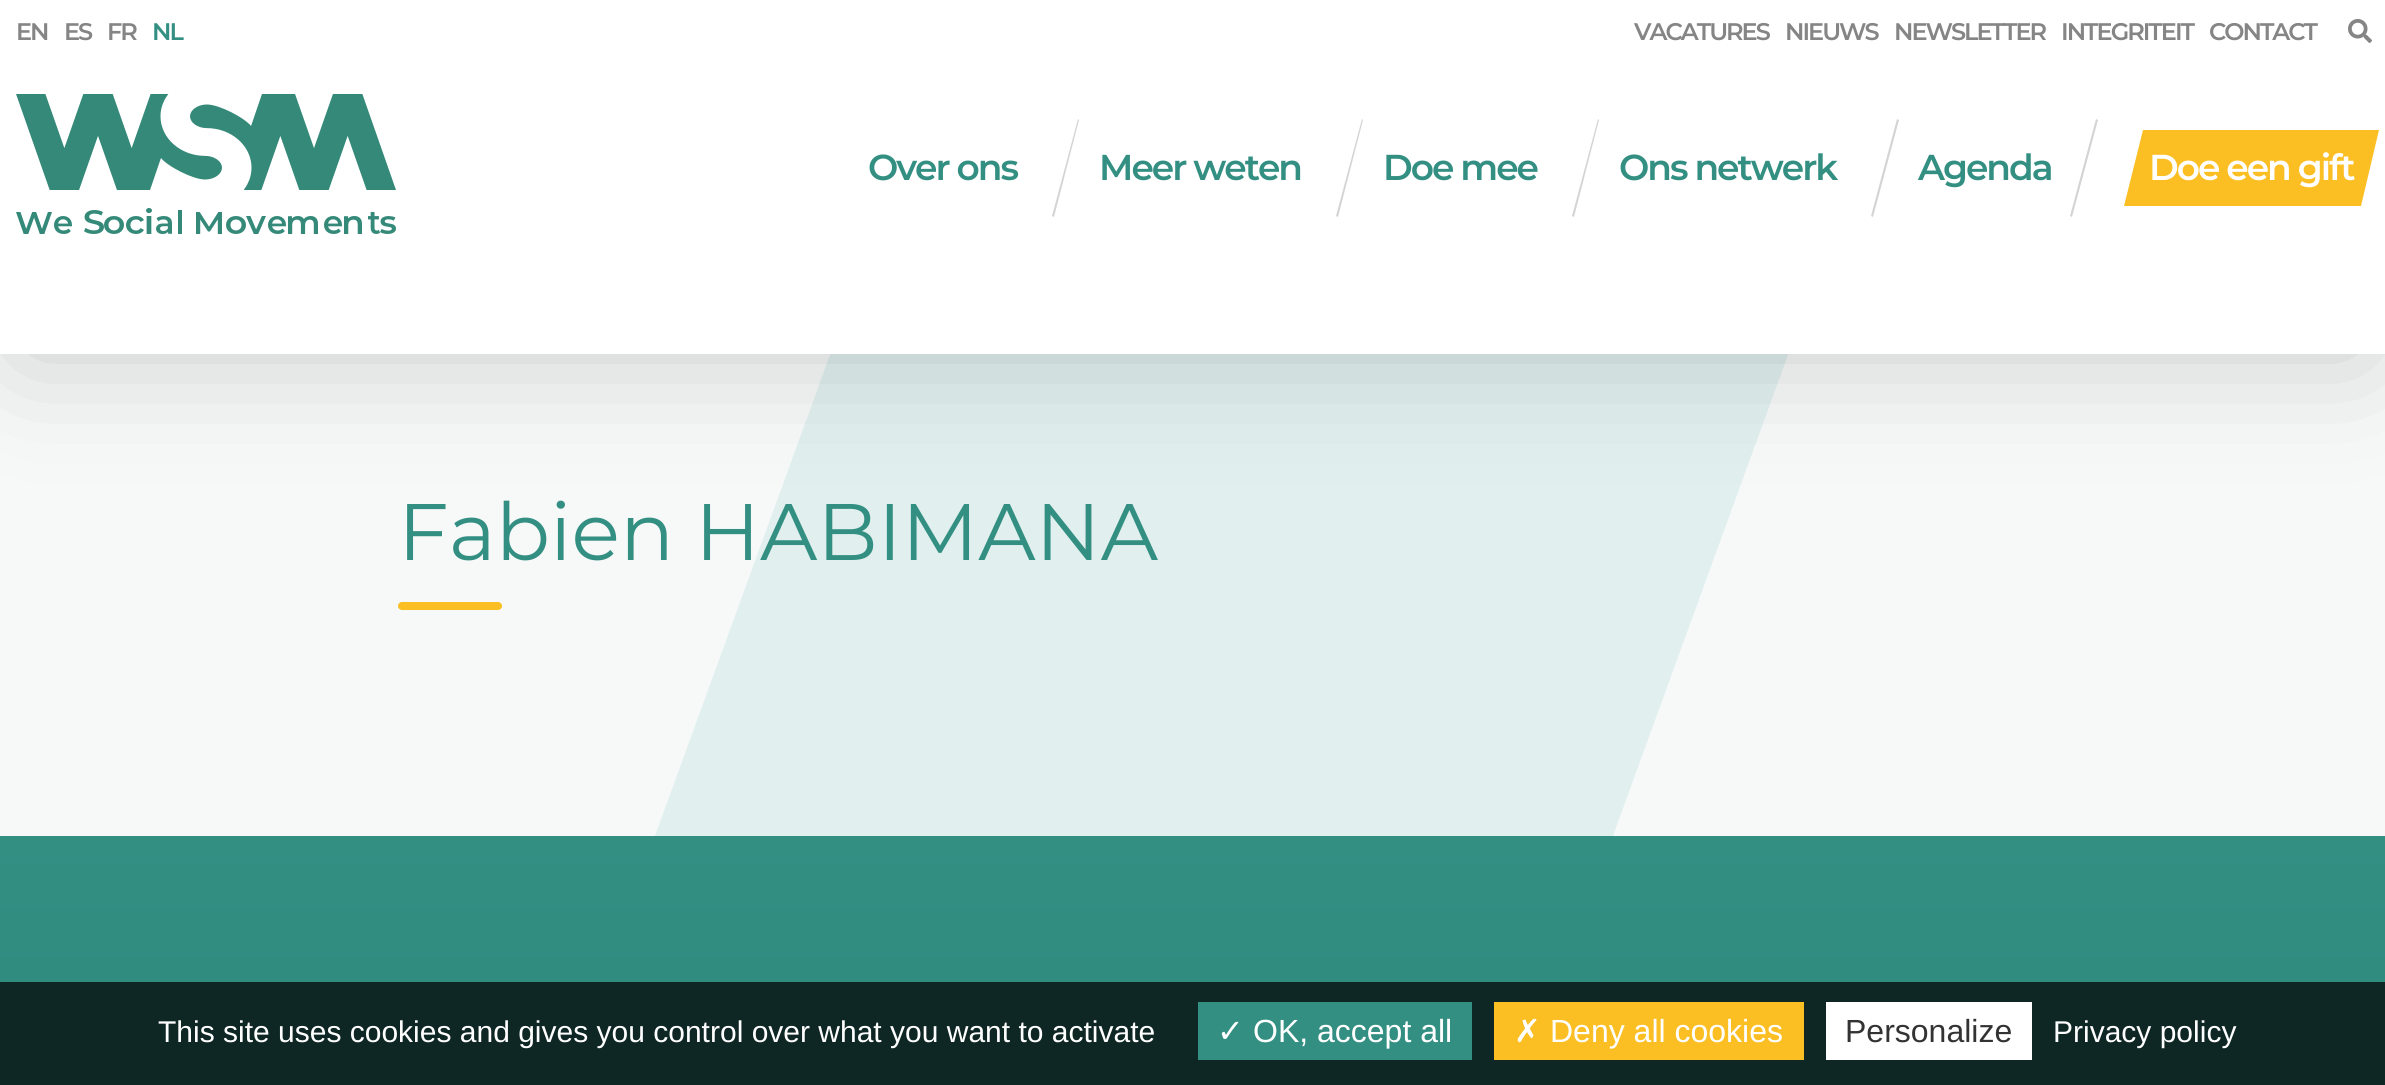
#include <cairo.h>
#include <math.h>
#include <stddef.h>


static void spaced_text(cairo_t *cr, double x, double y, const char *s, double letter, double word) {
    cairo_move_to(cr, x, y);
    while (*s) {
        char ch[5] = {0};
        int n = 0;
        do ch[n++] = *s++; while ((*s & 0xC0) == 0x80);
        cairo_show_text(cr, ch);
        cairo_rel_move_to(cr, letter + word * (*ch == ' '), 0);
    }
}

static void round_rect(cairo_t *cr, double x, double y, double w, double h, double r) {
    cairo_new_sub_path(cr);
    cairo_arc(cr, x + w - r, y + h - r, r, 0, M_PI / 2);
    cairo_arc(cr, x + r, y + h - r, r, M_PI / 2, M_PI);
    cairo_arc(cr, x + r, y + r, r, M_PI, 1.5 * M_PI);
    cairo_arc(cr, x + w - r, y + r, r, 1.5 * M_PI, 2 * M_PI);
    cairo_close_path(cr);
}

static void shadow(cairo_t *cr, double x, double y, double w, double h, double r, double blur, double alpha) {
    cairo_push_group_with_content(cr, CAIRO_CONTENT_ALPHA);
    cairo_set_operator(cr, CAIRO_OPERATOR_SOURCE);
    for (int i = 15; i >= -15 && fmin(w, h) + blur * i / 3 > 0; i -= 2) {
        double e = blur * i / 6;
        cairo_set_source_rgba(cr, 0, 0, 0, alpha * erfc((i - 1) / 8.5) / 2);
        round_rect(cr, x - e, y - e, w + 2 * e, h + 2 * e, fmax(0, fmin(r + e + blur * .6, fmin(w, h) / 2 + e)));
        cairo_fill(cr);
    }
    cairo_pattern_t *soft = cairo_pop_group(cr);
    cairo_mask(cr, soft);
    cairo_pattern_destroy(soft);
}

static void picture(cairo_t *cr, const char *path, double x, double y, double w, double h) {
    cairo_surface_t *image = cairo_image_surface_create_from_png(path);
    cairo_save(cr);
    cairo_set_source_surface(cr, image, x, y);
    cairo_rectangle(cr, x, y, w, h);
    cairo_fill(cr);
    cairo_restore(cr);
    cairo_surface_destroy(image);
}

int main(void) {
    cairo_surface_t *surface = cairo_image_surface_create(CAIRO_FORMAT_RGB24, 2385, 1085);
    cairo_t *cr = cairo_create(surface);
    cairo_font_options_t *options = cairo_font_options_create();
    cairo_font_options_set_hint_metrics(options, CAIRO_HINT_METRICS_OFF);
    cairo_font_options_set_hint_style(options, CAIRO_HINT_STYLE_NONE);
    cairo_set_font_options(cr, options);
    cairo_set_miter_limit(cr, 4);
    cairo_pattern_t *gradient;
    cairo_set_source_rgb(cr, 0.965, 0.973, 0.973);
    cairo_paint(cr);
    cairo_set_source_rgb(cr, 0.882, 0.941, 0.937);
    cairo_new_path(cr);
    cairo_move_to(cr, 954, 14);
    cairo_line_to(cr, 1800, 322);
    cairo_line_to(cr, 1073, 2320);
    cairo_line_to(cr, 227, 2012);
    cairo_close_path(cr);
    cairo_fill(cr);
    cairo_set_source_rgb(cr, 0, 0, 0);
    shadow(cr, 20, 40, 2346, 314, 0, 60, 0.2);
    cairo_set_source_rgb(cr, 1, 1, 1);
    cairo_rectangle(cr, 0, 0, 2385, 354);
    cairo_fill(cr);
    cairo_select_font_face(cr, "Montserrat SemiBold", CAIRO_FONT_SLANT_NORMAL, CAIRO_FONT_WEIGHT_NORMAL);
    cairo_set_font_size(cr, 24);
    cairo_set_source_rgb(cr, 0.522, 0.522, 0.522);
    spaced_text(cr, 16, 40, "EN", -2, 0);
    spaced_text(cr, 64, 40, "ES", -2, 0);
    spaced_text(cr, 107, 40, "FR", -2, 0);
    cairo_set_source_rgb(cr, 0.204, 0.561, 0.514);
    spaced_text(cr, 152, 40, "NL", -2, 0);
    cairo_set_source_rgb(cr, 0.522, 0.522, 0.522);
    spaced_text(cr, 1634, 40, "VACATURES", -2, 0);
    spaced_text(cr, 1785, 40, "NIEUWS", -2, 0);
    spaced_text(cr, 1894, 40, "NEWSLETTER", -2, 0);
    spaced_text(cr, 2061, 40, "INTEGRITEIT", -2, 0);
    spaced_text(cr, 2209, 40, "CONTACT", -2, 0);
    picture(cr, "img1.png", 2348, 19, 24, 24);
    picture(cr, "img2.png", 16, 94, 380, 140);
    cairo_set_font_size(cr, 36);
    cairo_set_source_rgb(cr, 0.204, 0.561, 0.514);
    spaced_text(cr, 868, 180, "Over ons", -2, 0);
    cairo_set_source_rgb(cr, 0.831, 0.831, 0.831);
    cairo_new_path(cr);
    cairo_move_to(cr, 1078, 119);
    cairo_line_to(cr, 1079, 120);
    cairo_line_to(cr, 1054, 217);
    cairo_line_to(cr, 1052, 216);
    cairo_close_path(cr);
    cairo_fill(cr);
    cairo_set_source_rgb(cr, 0.204, 0.561, 0.514);
    spaced_text(cr, 1099, 180, "Meer weten", -2, 0);
    cairo_set_source_rgb(cr, 0.831, 0.831, 0.831);
    cairo_new_path(cr);
    cairo_move_to(cr, 1362, 119);
    cairo_line_to(cr, 1363, 120);
    cairo_line_to(cr, 1338, 217);
    cairo_line_to(cr, 1336, 216);
    cairo_close_path(cr);
    cairo_fill(cr);
    cairo_set_source_rgb(cr, 0.204, 0.561, 0.514);
    spaced_text(cr, 1383, 180, "Doe mee", -2, 0);
    cairo_set_source_rgb(cr, 0.831, 0.831, 0.831);
    cairo_new_path(cr);
    cairo_move_to(cr, 1598, 119);
    cairo_line_to(cr, 1599, 120);
    cairo_line_to(cr, 1574, 217);
    cairo_line_to(cr, 1572, 216);
    cairo_close_path(cr);
    cairo_fill(cr);
    cairo_set_source_rgb(cr, 0.204, 0.561, 0.514);
    spaced_text(cr, 1619, 180, "Ons netwerk", -2, 0);
    cairo_set_source_rgb(cr, 0.831, 0.831, 0.831);
    cairo_new_path(cr);
    cairo_move_to(cr, 1897, 119);
    cairo_line_to(cr, 1899, 120);
    cairo_line_to(cr, 1873, 217);
    cairo_line_to(cr, 1871, 216);
    cairo_close_path(cr);
    cairo_fill(cr);
    cairo_set_source_rgb(cr, 0.204, 0.561, 0.514);
    spaced_text(cr, 1918, 180, "Agenda", -2, 0);
    cairo_set_source_rgb(cr, 0.831, 0.831, 0.831);
    cairo_new_path(cr);
    cairo_move_to(cr, 2096, 119);
    cairo_line_to(cr, 2098, 120);
    cairo_line_to(cr, 2072, 217);
    cairo_line_to(cr, 2070, 216);
    cairo_close_path(cr);
    cairo_fill(cr);
    cairo_set_source_rgb(cr, 0.984, 0.745, 0.137);
    cairo_new_path(cr);
    cairo_move_to(cr, 2143, 130);
    cairo_line_to(cr, 2379, 130);
    cairo_line_to(cr, 2361, 206);
    cairo_line_to(cr, 2124, 206);
    cairo_close_path(cr);
    cairo_fill(cr);
    cairo_set_source_rgb(cr, 1, 1, 1);
    spaced_text(cr, 2149, 180, "Doe een gift", -2, 0);
    cairo_select_font_face(cr, "Montserrat", CAIRO_FONT_SLANT_NORMAL, CAIRO_FONT_WEIGHT_NORMAL);
    cairo_set_font_size(cr, 80);
    cairo_set_source_rgb(cr, 0.204, 0.561, 0.514);
    cairo_move_to(cr, 398, 560);
    cairo_show_text(cr, "Fabien HABIMANA");
    cairo_set_source_rgb(cr, 0.984, 0.745, 0.137);
    round_rect(cr, 398, 602, 104, 8, 4);
    cairo_fill(cr);
    gradient = cairo_pattern_create_linear(1193, 836, 1193, 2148);
    cairo_pattern_add_color_stop_rgba(gradient, 0, 0.204, 0.561, 0.514, 1);
    cairo_pattern_add_color_stop_rgba(gradient, 1, 0.09, 0.451, 0.404, 1);
    cairo_set_source(cr, gradient);
    cairo_pattern_destroy(gradient);
    cairo_rectangle(cr, 0, 836, 2385, 146);
    cairo_fill(cr);
    cairo_set_source_rgb(cr, 0.055, 0.153, 0.141);
    cairo_rectangle(cr, 0, 982, 2385, 103);
    cairo_fill(cr);
    cairo_select_font_face(cr, "Liberation Sans", CAIRO_FONT_SLANT_NORMAL, CAIRO_FONT_WEIGHT_NORMAL);
    cairo_set_font_size(cr, 30);
    cairo_set_source_rgb(cr, 1, 1, 1);
    cairo_move_to(cr, 158, 1042);
    cairo_show_text(cr, "This site uses cookies and gives you control over what you want to activate");
    cairo_set_source_rgb(cr, 0.204, 0.561, 0.514);
    cairo_rectangle(cr, 1198, 1002, 274, 58);
    cairo_fill(cr);
    cairo_select_font_face(cr, "DejaVu Sans", CAIRO_FONT_SLANT_NORMAL, CAIRO_FONT_WEIGHT_NORMAL);
    cairo_set_font_size(cr, 32);
    cairo_set_source_rgb(cr, 1, 1, 1);
    cairo_move_to(cr, 1217, 1042);
    cairo_show_text(cr, "✓");
    cairo_select_font_face(cr, "Liberation Sans", CAIRO_FONT_SLANT_NORMAL, CAIRO_FONT_WEIGHT_NORMAL);
    cairo_move_to(cr, 1253, 1042);
    cairo_show_text(cr, "OK, accept all");
    cairo_set_source_rgb(cr, 0.984, 0.745, 0.137);
    cairo_rectangle(cr, 1494, 1002, 310, 58);
    cairo_fill(cr);
    cairo_select_font_face(cr, "DejaVu Sans", CAIRO_FONT_SLANT_NORMAL, CAIRO_FONT_WEIGHT_NORMAL);
    cairo_set_source_rgb(cr, 1, 1, 1);
    cairo_move_to(cr, 1514, 1042);
    cairo_show_text(cr, "✗");
    cairo_select_font_face(cr, "Liberation Sans", CAIRO_FONT_SLANT_NORMAL, CAIRO_FONT_WEIGHT_NORMAL);
    cairo_move_to(cr, 1550, 1042);
    cairo_show_text(cr, "Deny all cookies");
    cairo_rectangle(cr, 1826, 1002, 206, 58);
    cairo_fill(cr);
    cairo_set_source_rgb(cr, 0.2, 0.2, 0.2);
    cairo_move_to(cr, 1845, 1042);
    cairo_show_text(cr, "Personalize");
    cairo_set_font_size(cr, 30);
    cairo_set_source_rgb(cr, 1, 1, 1);
    cairo_move_to(cr, 2053, 1042);
    cairo_show_text(cr, "Privacy policy");
    cairo_surface_write_to_png(surface, "page.png");
    cairo_font_options_destroy(options);
    cairo_destroy(cr);
    cairo_surface_destroy(surface);
    return 0;
}
